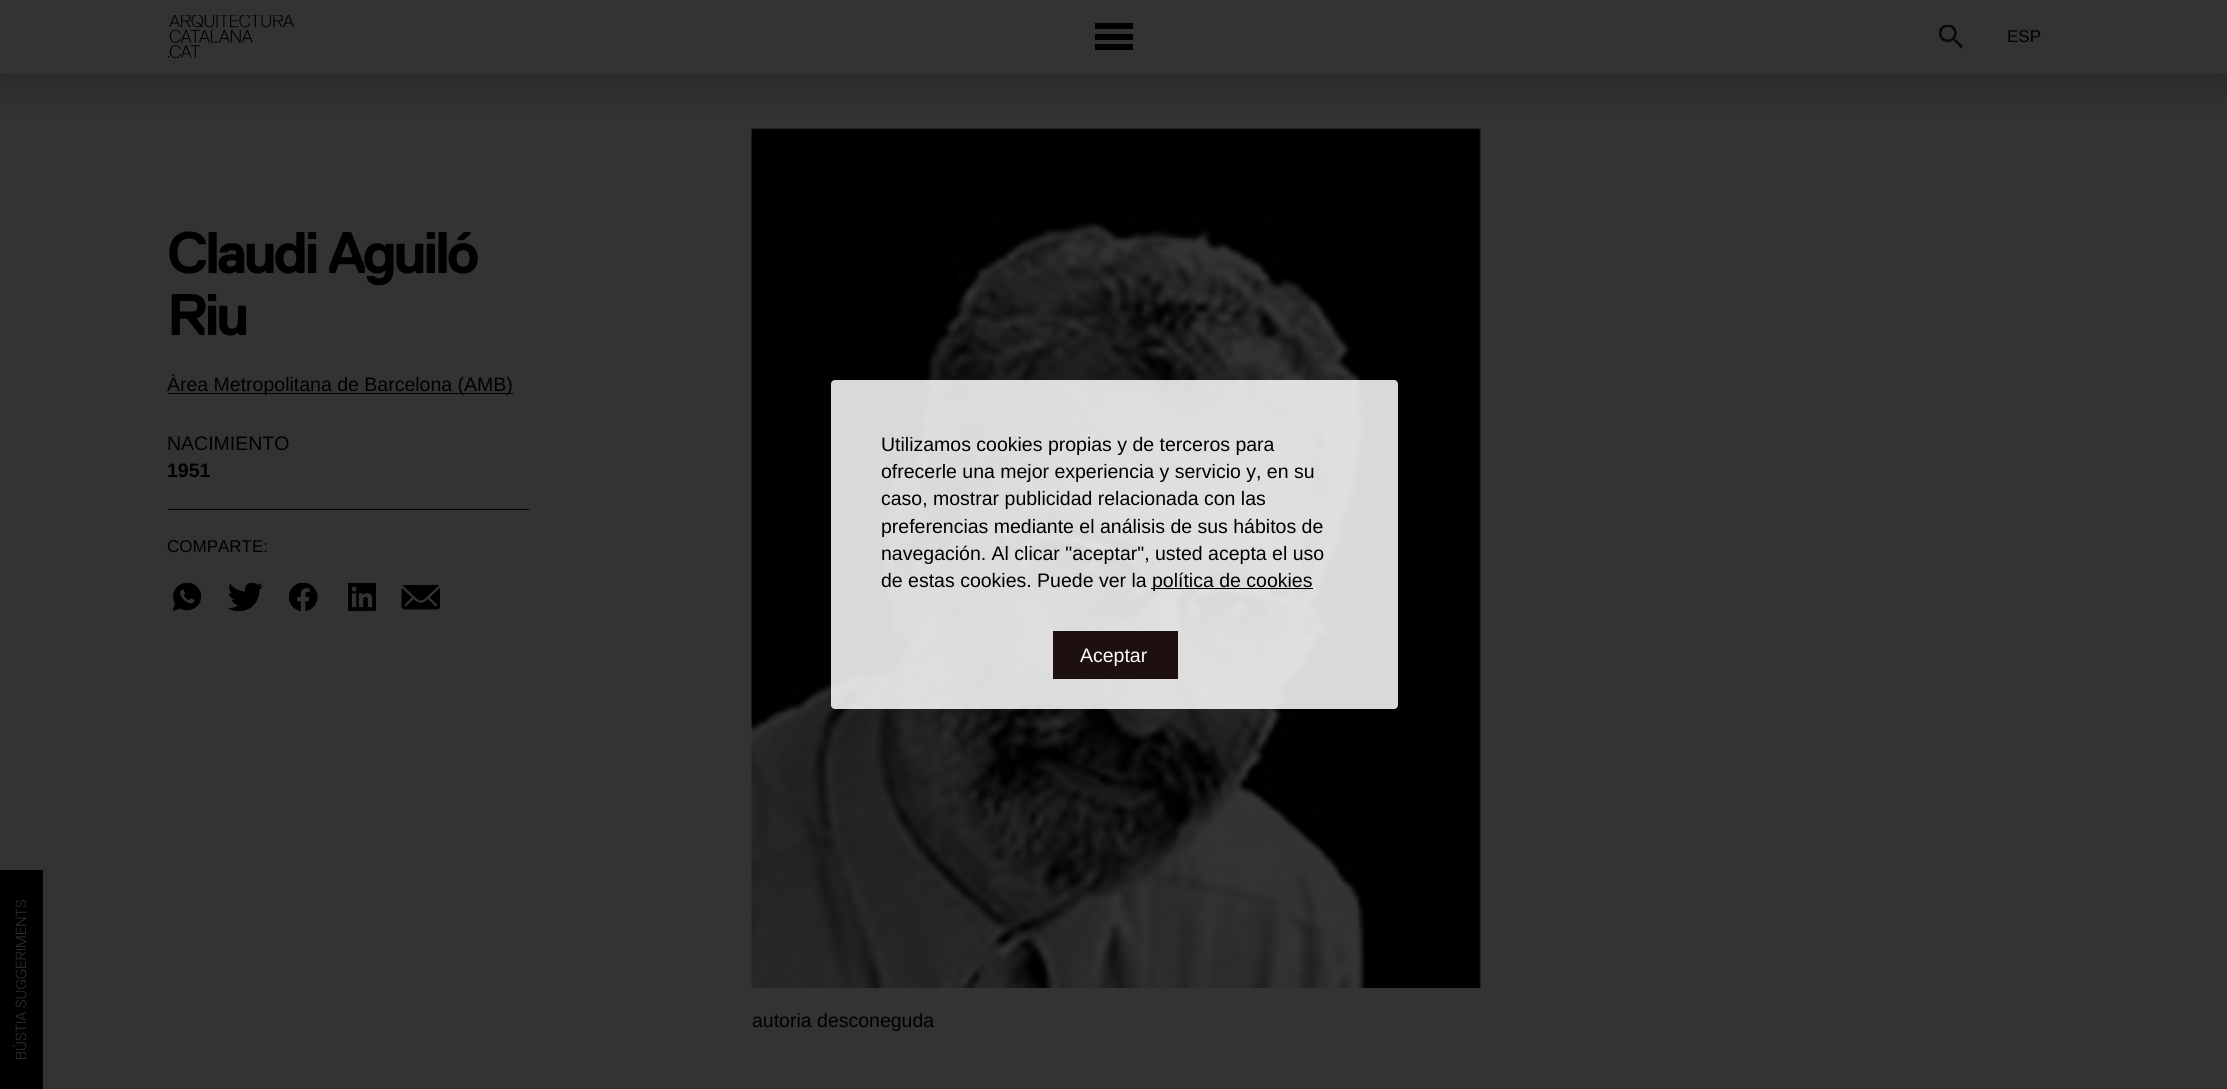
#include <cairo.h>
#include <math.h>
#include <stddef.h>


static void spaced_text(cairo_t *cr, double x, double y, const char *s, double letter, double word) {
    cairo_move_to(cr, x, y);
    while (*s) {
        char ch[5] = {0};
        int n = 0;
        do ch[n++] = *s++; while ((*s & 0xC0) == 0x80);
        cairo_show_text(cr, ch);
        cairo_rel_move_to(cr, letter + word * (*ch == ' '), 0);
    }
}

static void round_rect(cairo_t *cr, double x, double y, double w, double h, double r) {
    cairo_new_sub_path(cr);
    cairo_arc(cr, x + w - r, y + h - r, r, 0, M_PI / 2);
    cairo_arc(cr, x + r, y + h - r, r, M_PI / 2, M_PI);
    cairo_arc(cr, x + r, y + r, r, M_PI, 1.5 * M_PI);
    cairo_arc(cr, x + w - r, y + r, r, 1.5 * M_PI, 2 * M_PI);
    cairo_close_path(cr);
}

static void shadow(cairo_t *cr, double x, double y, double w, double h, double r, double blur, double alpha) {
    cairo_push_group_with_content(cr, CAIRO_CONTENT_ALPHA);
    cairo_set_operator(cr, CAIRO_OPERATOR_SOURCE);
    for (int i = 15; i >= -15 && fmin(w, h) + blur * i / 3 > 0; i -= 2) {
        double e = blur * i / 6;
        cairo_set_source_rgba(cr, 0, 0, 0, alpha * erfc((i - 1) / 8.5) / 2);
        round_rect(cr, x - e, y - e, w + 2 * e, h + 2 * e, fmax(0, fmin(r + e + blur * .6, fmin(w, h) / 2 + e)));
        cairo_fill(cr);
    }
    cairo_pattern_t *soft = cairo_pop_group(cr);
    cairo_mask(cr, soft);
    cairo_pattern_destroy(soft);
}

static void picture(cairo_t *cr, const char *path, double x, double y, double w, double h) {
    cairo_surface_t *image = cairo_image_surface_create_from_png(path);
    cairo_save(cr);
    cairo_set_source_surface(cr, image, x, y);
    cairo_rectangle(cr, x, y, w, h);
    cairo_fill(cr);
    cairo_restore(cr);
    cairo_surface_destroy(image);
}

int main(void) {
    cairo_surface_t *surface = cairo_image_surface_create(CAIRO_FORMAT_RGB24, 2227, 1089);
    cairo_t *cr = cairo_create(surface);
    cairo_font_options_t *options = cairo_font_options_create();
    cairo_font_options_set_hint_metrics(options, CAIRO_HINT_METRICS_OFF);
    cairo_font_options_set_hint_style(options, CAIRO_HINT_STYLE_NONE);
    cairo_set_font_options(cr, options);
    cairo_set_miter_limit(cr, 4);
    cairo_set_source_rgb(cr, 0.2, 0.2, 0.2);
    cairo_paint(cr);
    picture(cr, "img8.png", 751, 128, 730, 860);
    cairo_set_source_rgb(cr, 0, 0, 0);
    shadow(cr, 0, 0, 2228, 74, 0, 24.5, 0.4);
    cairo_set_source_rgb(cr, 0.2, 0.2, 0.2);
    cairo_rectangle(cr, 0, 0, 2227, 74);
    cairo_fill(cr);
    picture(cr, "img1.png", 168, 15, 126, 44);
    cairo_set_source_rgb(cr, 0, 0, 0);
    cairo_rectangle(cr, 1095, 34, 38, 6);
    cairo_fill(cr);
    cairo_rectangle(cr, 1095, 23, 38, 6);
    cairo_fill(cr);
    cairo_rectangle(cr, 1095, 44, 38, 6);
    cairo_fill(cr);
    picture(cr, "img2.png", 1939, 25, 24, 24);
    cairo_select_font_face(cr, "Liberation Sans", CAIRO_FONT_SLANT_NORMAL, CAIRO_FONT_WEIGHT_NORMAL);
    cairo_set_font_size(cr, 17);
    cairo_move_to(cr, 2007, 42);
    cairo_show_text(cr, "ESP");
    cairo_rectangle(cr, 0, 870, 43, 219);
    cairo_fill(cr);
    cairo_select_font_face(cr, "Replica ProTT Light", CAIRO_FONT_SLANT_NORMAL, CAIRO_FONT_WEIGHT_NORMAL);
    cairo_set_font_size(cr, 14.6);
    cairo_set_source_rgb(cr, 0.2, 0.2, 0.2);
    cairo_save(cr);
    cairo_translate(cr, 26, 1060);
    cairo_rotate(cr, -90 * M_PI / 180);
    cairo_move_to(cr, 0, 0);
    cairo_show_text(cr, "BÚSTIA SUGGERIMENTS");
    cairo_restore(cr);
    cairo_select_font_face(cr, "Replica ProTT", CAIRO_FONT_SLANT_NORMAL, CAIRO_FONT_WEIGHT_BOLD);
    cairo_set_font_size(cr, 58.5);
    cairo_set_source_rgb(cr, 0, 0, 0);
    spaced_text(cr, 167, 273, "Claudi Aguiló", -3.5, 0);
    spaced_text(cr, 167, 335, "Riu", -3.5, 0);
    cairo_rectangle(cr, 168, 393, 345, 1);
    cairo_fill(cr);
    cairo_select_font_face(cr, "Liberation Sans", CAIRO_FONT_SLANT_NORMAL, CAIRO_FONT_WEIGHT_NORMAL);
    cairo_set_font_size(cr, 19.5);
    cairo_move_to(cr, 167, 391);
    cairo_show_text(cr, "Àrea Metropolitana de Barcelona (AMB)");
    cairo_move_to(cr, 167, 450);
    cairo_show_text(cr, "NACIMIENTO");
    cairo_select_font_face(cr, "Liberation Sans", CAIRO_FONT_SLANT_NORMAL, CAIRO_FONT_WEIGHT_BOLD);
    cairo_move_to(cr, 167, 477);
    cairo_show_text(cr, "1951");
    cairo_rectangle(cr, 168, 509, 361, 1);
    cairo_fill(cr);
    cairo_select_font_face(cr, "Liberation Sans", CAIRO_FONT_SLANT_NORMAL, CAIRO_FONT_WEIGHT_NORMAL);
    cairo_set_font_size(cr, 17);
    cairo_move_to(cr, 167, 552);
    cairo_show_text(cr, "COMPARTE:");
    picture(cr, "img3.png", 173, 583, 28, 28);
    picture(cr, "img4.png", 228, 583, 35, 28);
    picture(cr, "img5.png", 289, 583, 29, 28);
    picture(cr, "img6.png", 348, 583, 28, 28);
    picture(cr, "img7.png", 401, 585, 39, 25);
    cairo_set_font_size(cr, 19.5);
    cairo_move_to(cr, 752, 1027);
    cairo_show_text(cr, "autoria desconeguda");
    cairo_set_source_rgba(cr, 1, 1, 1, 0.85);
    round_rect(cr, 831, 380, 567, 329, 4);
    cairo_fill(cr);
    cairo_set_source_rgb(cr, 0, 0, 0);
    cairo_move_to(cr, 881, 451);
    cairo_show_text(cr, "Utilizamos cookies propias y de terceros para");
    cairo_move_to(cr, 881, 478);
    cairo_show_text(cr, "ofrecerle una mejor experiencia y servicio y, en su");
    cairo_move_to(cr, 881, 505);
    cairo_show_text(cr, "caso, mostrar publicidad relacionada con las");
    cairo_move_to(cr, 881, 533);
    cairo_show_text(cr, "preferencias mediante el análisis de sus hábitos de");
    cairo_move_to(cr, 881, 560);
    cairo_show_text(cr, "navegación. Al clicar \"aceptar\", usted acepta el uso");
    cairo_move_to(cr, 881, 587);
    cairo_show_text(cr, "de estas cookies. Puede ver la");
    cairo_rectangle(cr, 1151, 588, 162, 1);
    cairo_fill(cr);
    cairo_move_to(cr, 1152, 587);
    cairo_show_text(cr, "política de cookies");
    cairo_set_source_rgb(cr, 0.122, 0.063, 0.063);
    cairo_rectangle(cr, 1053, 631, 125, 48);
    cairo_fill(cr);
    cairo_set_source_rgb(cr, 1, 1, 1);
    cairo_move_to(cr, 1080, 662);
    cairo_show_text(cr, "Aceptar");
    cairo_surface_write_to_png(surface, "page.png");
    cairo_font_options_destroy(options);
    cairo_destroy(cr);
    cairo_surface_destroy(surface);
    return 0;
}
